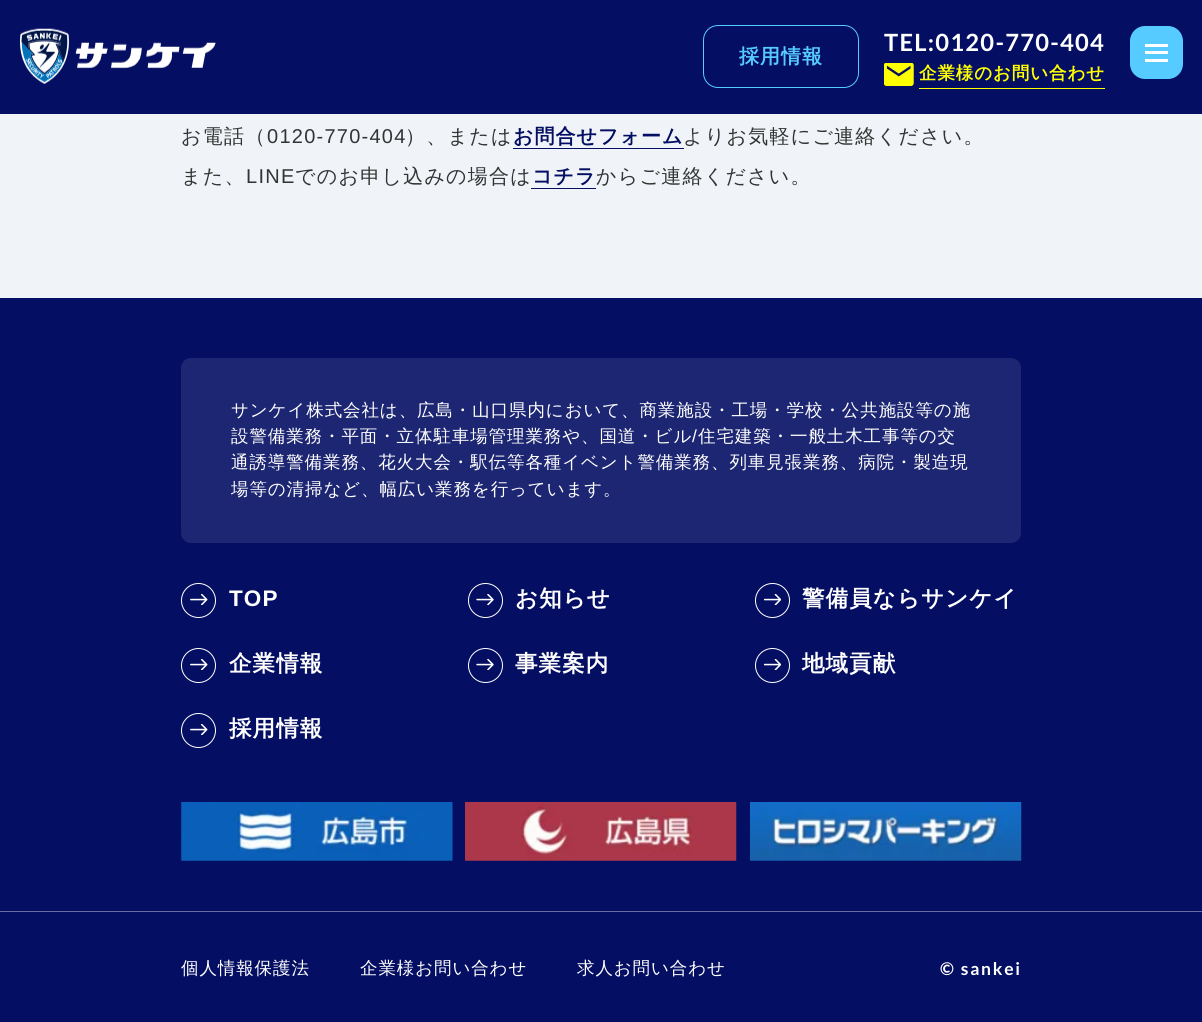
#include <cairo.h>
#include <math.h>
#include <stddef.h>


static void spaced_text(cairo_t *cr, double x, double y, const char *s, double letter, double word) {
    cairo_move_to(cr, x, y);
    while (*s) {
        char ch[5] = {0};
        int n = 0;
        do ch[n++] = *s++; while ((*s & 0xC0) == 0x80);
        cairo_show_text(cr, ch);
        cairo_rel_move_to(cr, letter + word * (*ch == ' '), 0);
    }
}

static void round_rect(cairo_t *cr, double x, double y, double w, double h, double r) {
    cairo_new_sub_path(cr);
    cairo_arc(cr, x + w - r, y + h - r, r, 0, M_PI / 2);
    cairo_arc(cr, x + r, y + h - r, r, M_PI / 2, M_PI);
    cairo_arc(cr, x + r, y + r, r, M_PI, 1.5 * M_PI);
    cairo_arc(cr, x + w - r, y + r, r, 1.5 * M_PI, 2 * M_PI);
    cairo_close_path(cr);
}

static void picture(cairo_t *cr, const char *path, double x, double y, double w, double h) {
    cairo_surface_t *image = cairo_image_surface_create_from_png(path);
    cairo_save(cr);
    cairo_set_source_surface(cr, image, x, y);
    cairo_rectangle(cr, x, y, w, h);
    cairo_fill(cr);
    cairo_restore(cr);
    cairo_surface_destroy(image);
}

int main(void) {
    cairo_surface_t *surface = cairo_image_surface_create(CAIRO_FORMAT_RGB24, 1202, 1022);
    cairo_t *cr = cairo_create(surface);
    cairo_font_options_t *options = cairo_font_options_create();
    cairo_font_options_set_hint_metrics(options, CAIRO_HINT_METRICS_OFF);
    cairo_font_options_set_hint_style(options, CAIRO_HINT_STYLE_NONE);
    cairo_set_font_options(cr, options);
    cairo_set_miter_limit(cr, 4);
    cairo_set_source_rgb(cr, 0.941, 0.957, 0.969);
    cairo_paint(cr);
    cairo_set_source_rgb(cr, 0.016, 0.055, 0.384);
    cairo_rectangle(cr, 0, 0, 1202, 114);
    cairo_fill(cr);
    picture(cr, "img1.png", 20, 28, 196, 56);
    round_rect(cr, 703.5, 25.5, 155, 62, 14.5);
    cairo_set_source_rgb(cr, 0.333, 0.796, 1);
    cairo_set_line_width(cr, 1);
    cairo_stroke(cr);
    cairo_select_font_face(cr, "WenQuanYi Zen Hei", CAIRO_FONT_SLANT_NORMAL, CAIRO_FONT_WEIGHT_BOLD);
    cairo_set_font_size(cr, 20);
    spaced_text(cr, 739, 63, "採用情報", 1, 0);
    cairo_select_font_face(cr, "Lato", CAIRO_FONT_SLANT_NORMAL, CAIRO_FONT_WEIGHT_BOLD);
    cairo_set_font_size(cr, 23.75);
    cairo_set_source_rgb(cr, 1, 1, 1);
    spaced_text(cr, 884, 51, "TEL:0120-770-404", 1.25, 0);
    picture(cr, "img2.png", 884, 63, 30, 23);
    cairo_set_source_rgb(cr, 1, 1, 0);
    cairo_rectangle(cr, 919, 88, 186, 1);
    cairo_fill(cr);
    cairo_select_font_face(cr, "WenQuanYi Zen Hei", CAIRO_FONT_SLANT_NORMAL, CAIRO_FONT_WEIGHT_BOLD);
    cairo_set_font_size(cr, 17.5);
    spaced_text(cr, 919, 79, "企業様のお問い合わせ", 0.9, 0);
    cairo_set_source_rgb(cr, 0.333, 0.796, 1);
    round_rect(cr, 1130, 26, 53, 53, 15);
    cairo_fill(cr);
    cairo_set_source_rgb(cr, 1, 1, 1);
    cairo_rectangle(cr, 1145, 44, 23, 3);
    cairo_fill(cr);
    cairo_rectangle(cr, 1145, 51, 23, 3);
    cairo_fill(cr);
    cairo_rectangle(cr, 1145, 59, 23, 3);
    cairo_fill(cr);
    cairo_select_font_face(cr, "WenQuanYi Zen Hei Medium", CAIRO_FONT_SLANT_NORMAL, CAIRO_FONT_WEIGHT_NORMAL);
    cairo_set_font_size(cr, 20);
    cairo_set_source_rgb(cr, 0.2, 0.2, 0.2);
    spaced_text(cr, 181, 143, "お電話（", 1.25, 0);
    cairo_select_font_face(cr, "Liberation Sans", CAIRO_FONT_SLANT_NORMAL, CAIRO_FONT_WEIGHT_NORMAL);
    spaced_text(cr, 267, 143, "0120-770-404", 1.25, 0);
    cairo_select_font_face(cr, "WenQuanYi Zen Hei Medium", CAIRO_FONT_SLANT_NORMAL, CAIRO_FONT_WEIGHT_NORMAL);
    spaced_text(cr, 405, 143, "）、または", 1.25, 0);
    cairo_select_font_face(cr, "WenQuanYi Zen Hei", CAIRO_FONT_SLANT_NORMAL, CAIRO_FONT_WEIGHT_BOLD);
    cairo_set_source_rgb(cr, 0.016, 0.055, 0.384);
    spaced_text(cr, 513, 143, "お問合せフォーム", 1, 0);
    cairo_rectangle(cr, 513, 148, 171, 1);
    cairo_fill(cr);
    cairo_select_font_face(cr, "WenQuanYi Zen Hei Medium", CAIRO_FONT_SLANT_NORMAL, CAIRO_FONT_WEIGHT_NORMAL);
    cairo_set_source_rgb(cr, 0.2, 0.2, 0.2);
    spaced_text(cr, 683, 143, "よりお気軽にご連絡ください。", 1.25, 0);
    spaced_text(cr, 181, 183, "また、", 1.25, 0);
    cairo_select_font_face(cr, "Liberation Sans", CAIRO_FONT_SLANT_NORMAL, CAIRO_FONT_WEIGHT_NORMAL);
    spaced_text(cr, 246, 183, "LINE", 1.25, 0);
    cairo_select_font_face(cr, "WenQuanYi Zen Hei Medium", CAIRO_FONT_SLANT_NORMAL, CAIRO_FONT_WEIGHT_NORMAL);
    spaced_text(cr, 295, 183, "でのお申し込みの場合は", 1.25, 0);
    cairo_select_font_face(cr, "WenQuanYi Zen Hei", CAIRO_FONT_SLANT_NORMAL, CAIRO_FONT_WEIGHT_BOLD);
    cairo_set_source_rgb(cr, 0.016, 0.055, 0.384);
    spaced_text(cr, 532, 183, "コチラ", 1, 0);
    cairo_rectangle(cr, 531, 188, 65, 1);
    cairo_fill(cr);
    cairo_select_font_face(cr, "WenQuanYi Zen Hei Medium", CAIRO_FONT_SLANT_NORMAL, CAIRO_FONT_WEIGHT_NORMAL);
    cairo_set_source_rgb(cr, 0.2, 0.2, 0.2);
    spaced_text(cr, 596, 183, "からご連絡ください。", 1.25, 0);
    cairo_set_source_rgb(cr, 0.016, 0.055, 0.384);
    cairo_rectangle(cr, 0, 298, 1202, 724);
    cairo_fill(cr);
    cairo_set_source_rgb(cr, 0.114, 0.149, 0.447);
    round_rect(cr, 181, 358, 840, 185, 10);
    cairo_fill(cr);
    cairo_set_font_size(cr, 17.5);
    cairo_set_source_rgb(cr, 1, 1, 1);
    spaced_text(cr, 231, 416, "サンケイ株式会社は、広島・山口県内において、商業施設・工場・学校・公共施設等の施", 0.9, 0);
    spaced_text(cr, 231, 442, "設警備業務・平面・立体駐車場管理業務や、国道・ビル", 0.9, 0);
    cairo_select_font_face(cr, "Liberation Sans", CAIRO_FONT_SLANT_NORMAL, CAIRO_FONT_WEIGHT_NORMAL);
    spaced_text(cr, 692, 442, "/", 0.9, 0);
    cairo_select_font_face(cr, "WenQuanYi Zen Hei Medium", CAIRO_FONT_SLANT_NORMAL, CAIRO_FONT_WEIGHT_NORMAL);
    spaced_text(cr, 698, 442, "住宅建築・一般土木工事等の交", 0.9, 0);
    spaced_text(cr, 231, 468, "通誘導警備業務、花火大会・駅伝等各種イベント警備業務、列車見張業務、病院・製造現", 0.9, 0);
    spaced_text(cr, 231, 495, "場等の清掃など、幅広い業務を行っています。", 0.9, 0);
    cairo_new_path(cr);
    cairo_arc(cr, 198.5, 600.5, 17, 0, 2 * M_PI);
    cairo_stroke(cr);
    picture(cr, "img3.png", 190, 594, 18, 11);
    cairo_select_font_face(cr, "Liberation Sans", CAIRO_FONT_SLANT_NORMAL, CAIRO_FONT_WEIGHT_BOLD);
    cairo_set_font_size(cr, 22.5);
    spaced_text(cr, 229, 606, "TOP", 1.1, 0);
    cairo_new_path(cr);
    cairo_arc(cr, 485.5, 600.5, 17, 0, 2 * M_PI);
    cairo_stroke(cr);
    picture(cr, "img4.png", 476, 594, 18, 11);
    cairo_select_font_face(cr, "WenQuanYi Zen Hei", CAIRO_FONT_SLANT_NORMAL, CAIRO_FONT_WEIGHT_BOLD);
    spaced_text(cr, 515, 606, "お知らせ", 1.1, 0);
    cairo_new_path(cr);
    cairo_arc(cr, 772.5, 600.5, 17, 0, 2 * M_PI);
    cairo_stroke(cr);
    picture(cr, "img5.png", 764, 594, 17, 11);
    spaced_text(cr, 802, 606, "警備員ならサンケイ", 1.1, 0);
    cairo_new_path(cr);
    cairo_arc(cr, 198.5, 665.5, 17, 0, 2 * M_PI);
    cairo_stroke(cr);
    picture(cr, "img3.png", 190, 659, 18, 11);
    spaced_text(cr, 229, 671, "企業情報", 1.1, 0);
    cairo_new_path(cr);
    cairo_arc(cr, 485.5, 665.5, 17, 0, 2 * M_PI);
    cairo_stroke(cr);
    picture(cr, "img4.png", 476, 659, 18, 11);
    spaced_text(cr, 515, 671, "事業案内", 1.1, 0);
    cairo_new_path(cr);
    cairo_arc(cr, 772.5, 665.5, 17, 0, 2 * M_PI);
    cairo_stroke(cr);
    picture(cr, "img5.png", 764, 659, 17, 11);
    spaced_text(cr, 802, 671, "地域貢献", 1.1, 0);
    cairo_new_path(cr);
    cairo_arc(cr, 198.5, 730.5, 17, 0, 2 * M_PI);
    cairo_stroke(cr);
    picture(cr, "img3.png", 190, 724, 18, 11);
    spaced_text(cr, 229, 736, "採用情報", 1.1, 0);
    picture(cr, "img6.png", 181, 802, 272, 59);
    picture(cr, "img7.png", 465, 802, 272, 59);
    picture(cr, "img8.png", 750, 802, 272, 59);
    cairo_set_source_rgb(cr, 0.408, 0.431, 0.631);
    cairo_rectangle(cr, 0, 911, 1202, 1);
    cairo_fill(cr);
    cairo_select_font_face(cr, "WenQuanYi Zen Hei Medium", CAIRO_FONT_SLANT_NORMAL, CAIRO_FONT_WEIGHT_NORMAL);
    cairo_set_font_size(cr, 17.5);
    cairo_set_source_rgb(cr, 1, 1, 1);
    spaced_text(cr, 181, 974, "個人情報保護法", 0.9, 0);
    spaced_text(cr, 360, 974, "企業様お問い合わせ", 0.9, 0);
    spaced_text(cr, 577, 974, "求人お問い合わせ", 0.9, 0);
    cairo_select_font_face(cr, "Lato", CAIRO_FONT_SLANT_NORMAL, CAIRO_FONT_WEIGHT_BOLD);
    spaced_text(cr, 940, 975, "© sankei", 1.75, 0);
    cairo_surface_write_to_png(surface, "page.png");
    cairo_font_options_destroy(options);
    cairo_destroy(cr);
    cairo_surface_destroy(surface);
    return 0;
}
